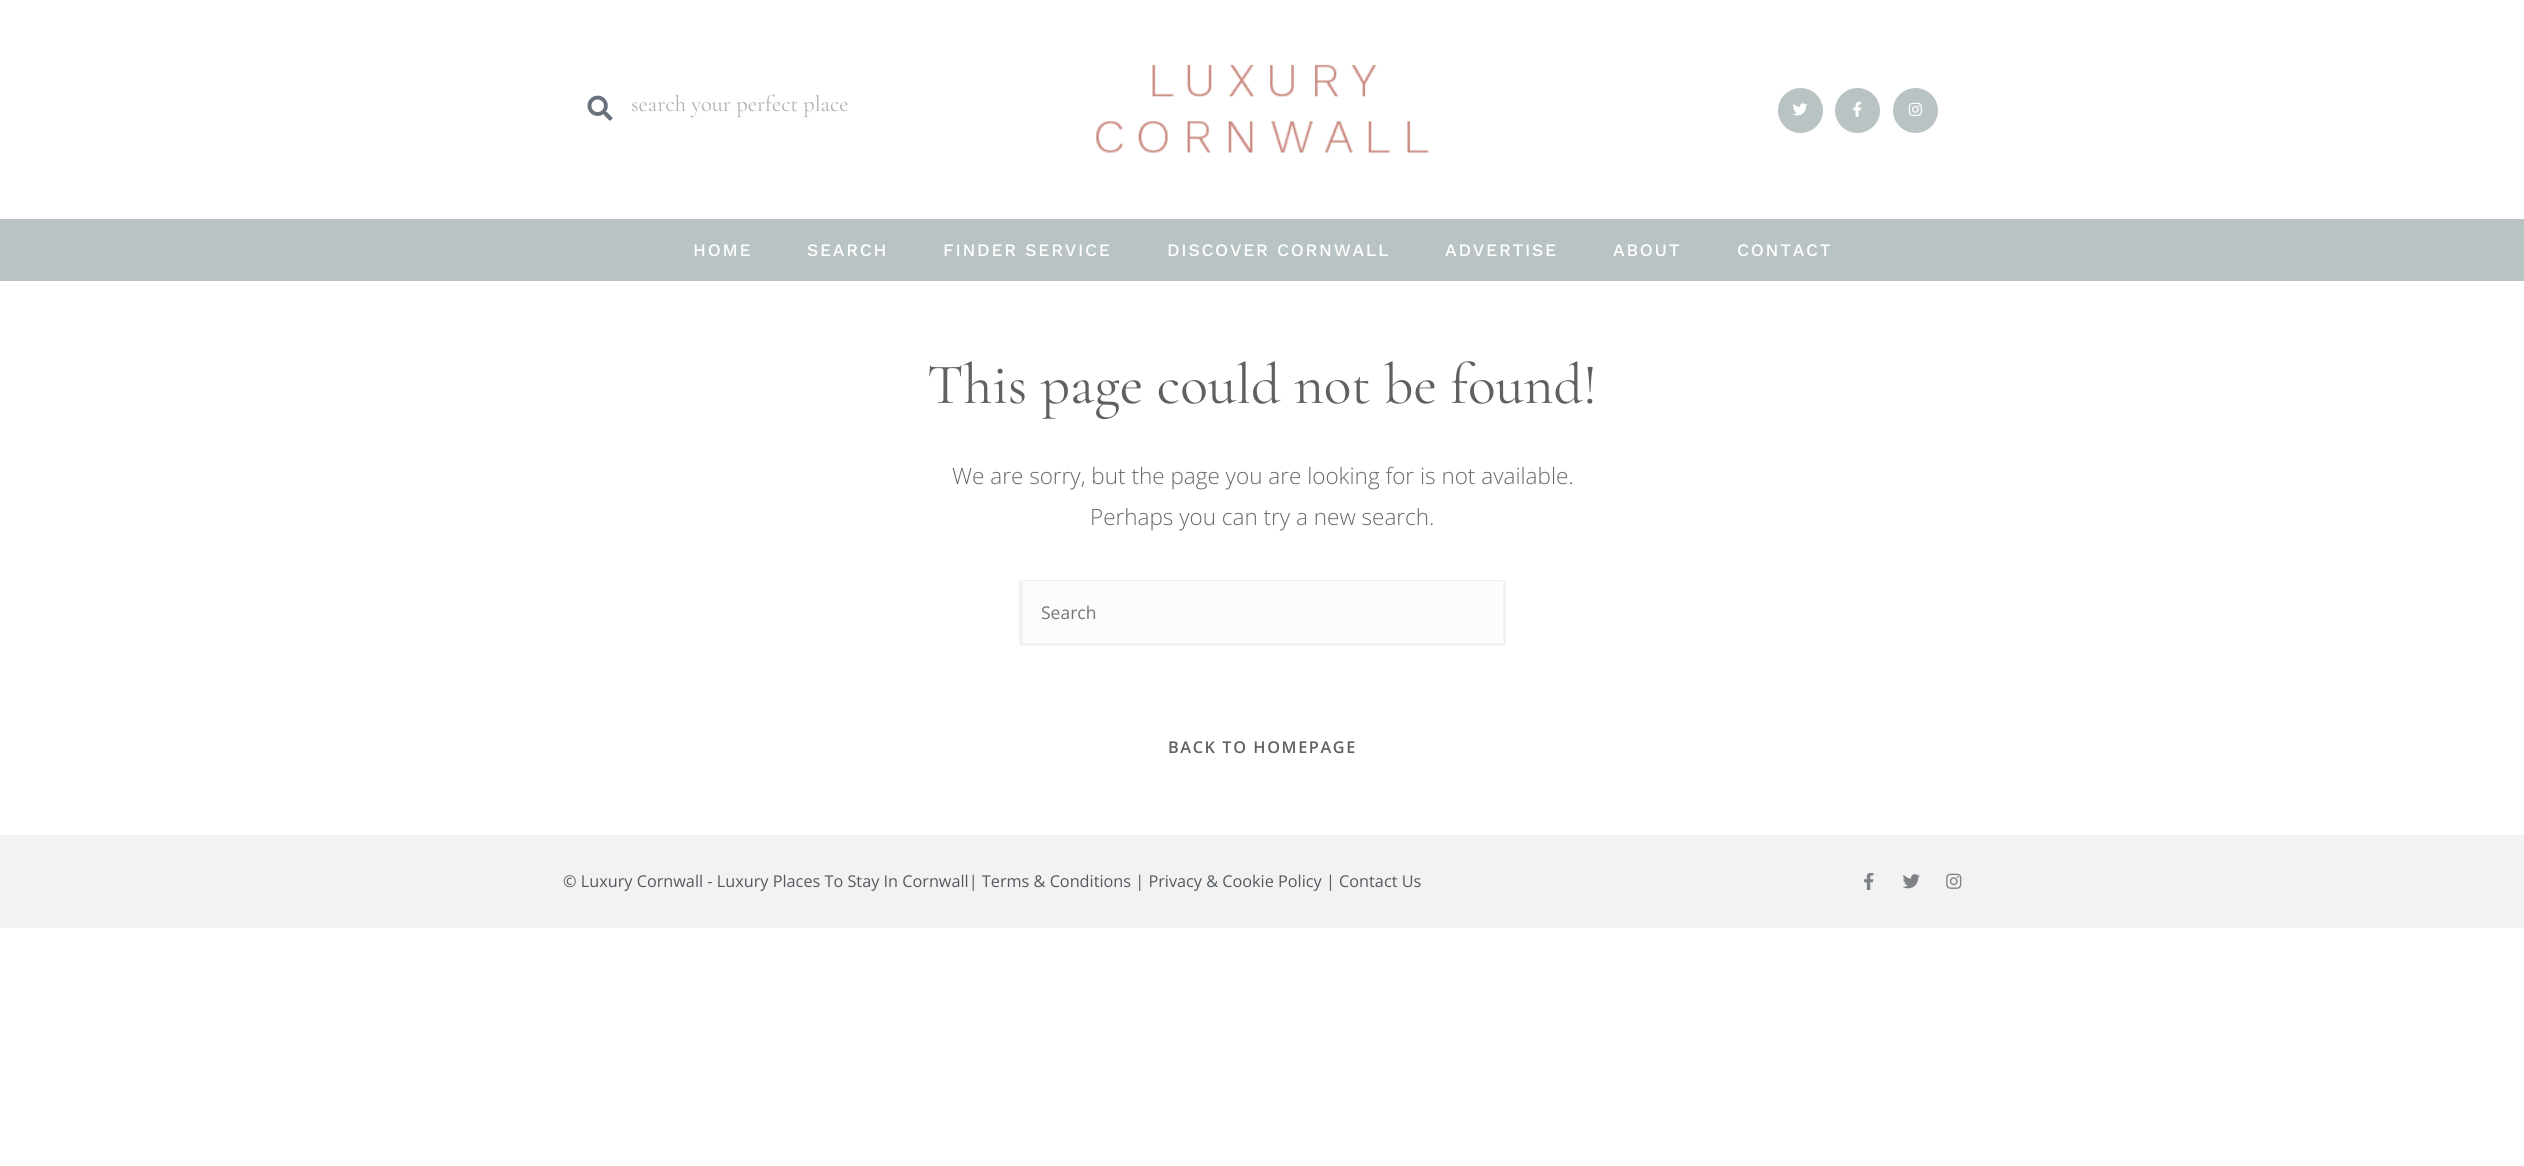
#include <cairo.h>
#include <math.h>
#include <stddef.h>


static void spaced_text(cairo_t *cr, double x, double y, const char *s, double letter, double word) {
    cairo_move_to(cr, x, y);
    while (*s) {
        char ch[5] = {0};
        int n = 0;
        do ch[n++] = *s++; while ((*s & 0xC0) == 0x80);
        cairo_show_text(cr, ch);
        cairo_rel_move_to(cr, letter + word * (*ch == ' '), 0);
    }
}

static void round_rect(cairo_t *cr, double x, double y, double w, double h, double r) {
    cairo_new_sub_path(cr);
    cairo_arc(cr, x + w - r, y + h - r, r, 0, M_PI / 2);
    cairo_arc(cr, x + r, y + h - r, r, M_PI / 2, M_PI);
    cairo_arc(cr, x + r, y + r, r, M_PI, 1.5 * M_PI);
    cairo_arc(cr, x + w - r, y + r, r, 1.5 * M_PI, 2 * M_PI);
    cairo_close_path(cr);
}

static void picture(cairo_t *cr, const char *path, double x, double y, double w, double h) {
    cairo_surface_t *image = cairo_image_surface_create_from_png(path);
    cairo_save(cr);
    cairo_set_source_surface(cr, image, x, y);
    cairo_rectangle(cr, x, y, w, h);
    cairo_fill(cr);
    cairo_restore(cr);
    cairo_surface_destroy(image);
}

int main(void) {
    cairo_surface_t *surface = cairo_image_surface_create(CAIRO_FORMAT_RGB24, 2524, 1166);
    cairo_t *cr = cairo_create(surface);
    cairo_font_options_t *options = cairo_font_options_create();
    cairo_font_options_set_hint_metrics(options, CAIRO_HINT_METRICS_OFF);
    cairo_font_options_set_hint_style(options, CAIRO_HINT_STYLE_NONE);
    cairo_set_font_options(cr, options);
    cairo_set_miter_limit(cr, 4);
    cairo_set_source_rgb(cr, 1, 1, 1);
    cairo_paint(cr);
    picture(cr, "img1.png", 587, 95, 26, 26);
    cairo_select_font_face(cr, "Cormorant Garamond", CAIRO_FONT_SLANT_NORMAL, CAIRO_FONT_WEIGHT_NORMAL);
    cairo_set_font_size(cr, 22.5);
    cairo_set_source_rgb(cr, 0.69, 0.69, 0.69);
    cairo_move_to(cr, 631, 111);
    cairo_show_text(cr, "search your perfect place");
    picture(cr, "img2.png", 1096, 64, 333, 89);
    cairo_set_source_rgb(cr, 0.729, 0.765, 0.769);
    cairo_arc(cr, 1800.5, 110.5, 22.5, 0, 2 * M_PI);
    cairo_fill(cr);
    picture(cr, "img3.png", 1792, 103, 16, 13);
    cairo_arc(cr, 1857.5, 110.5, 22.5, 0, 2 * M_PI);
    cairo_fill(cr);
    picture(cr, "img4.png", 1853, 101, 9, 16);
    cairo_arc(cr, 1915.5, 110.5, 22.5, 0, 2 * M_PI);
    cairo_fill(cr);
    picture(cr, "img5.png", 1908, 102, 14, 14);
    cairo_rectangle(cr, 0, 219, 2524, 62);
    cairo_fill(cr);
    cairo_select_font_face(cr, "Work Sans Medium", CAIRO_FONT_SLANT_NORMAL, CAIRO_FONT_WEIGHT_NORMAL);
    cairo_set_font_size(cr, 17.5);
    cairo_set_source_rgb(cr, 1, 1, 1);
    spaced_text(cr, 693, 256, "HOME", 1.75, 0);
    spaced_text(cr, 807, 256, "SEARCH", 1.75, 0);
    spaced_text(cr, 943, 256, "FINDER SERVICE", 1.75, 0);
    spaced_text(cr, 1167, 256, "DISCOVER CORNWALL", 1.75, 0);
    spaced_text(cr, 1445, 256, "ADVERTISE", 1.75, 0);
    spaced_text(cr, 1613, 256, "ABOUT", 1.75, 0);
    spaced_text(cr, 1737, 256, "CONTACT", 1.75, 0);
    cairo_select_font_face(cr, "Cormorant Garamond", CAIRO_FONT_SLANT_NORMAL, CAIRO_FONT_WEIGHT_NORMAL);
    cairo_set_font_size(cr, 57.5);
    cairo_set_source_rgb(cr, 0.376, 0.376, 0.376);
    cairo_move_to(cr, 927, 403);
    cairo_show_text(cr, "This page could not be found!");
    cairo_select_font_face(cr, "Open Sans Light", CAIRO_FONT_SLANT_NORMAL, CAIRO_FONT_WEIGHT_NORMAL);
    cairo_set_font_size(cr, 22.5);
    cairo_set_source_rgb(cr, 0.408, 0.408, 0.408);
    cairo_move_to(cr, 952, 484);
    cairo_show_text(cr, "We are sorry, but the page you are looking for is not available.");
    cairo_move_to(cr, 1090, 525);
    cairo_show_text(cr, "Perhaps you can try a new search.");
    cairo_set_source_rgb(cr, 0.988, 0.988, 0.988);
    cairo_rectangle(cr, 1023, 581, 479, 61);
    cairo_fill(cr);
    round_rect(cr, 1019.5, 580.5, 486, 65, 2);
    cairo_set_source_rgb(cr, 0.949, 0.949, 0.949);
    cairo_set_line_width(cr, 1);
    cairo_stroke(cr);
    cairo_rectangle(cr, 1503, 581, 3, 64);
    cairo_fill(cr);
    cairo_rectangle(cr, 1020, 643, 485, 3);
    cairo_fill(cr);
    cairo_rectangle(cr, 1020, 581, 3, 64);
    cairo_fill(cr);
    cairo_select_font_face(cr, "Open Sans", CAIRO_FONT_SLANT_NORMAL, CAIRO_FONT_WEIGHT_NORMAL);
    cairo_set_font_size(cr, 17.5);
    cairo_set_source_rgb(cr, 0.459, 0.459, 0.459);
    cairo_move_to(cr, 1041, 619);
    cairo_show_text(cr, "Search");
    cairo_select_font_face(cr, "Open Sans SemiBold", CAIRO_FONT_SLANT_NORMAL, CAIRO_FONT_WEIGHT_NORMAL);
    cairo_set_font_size(cr, 16.25);
    cairo_set_source_rgb(cr, 0.376, 0.376, 0.376);
    spaced_text(cr, 1168, 753, "BACK TO HOMEPAGE", 1.6, 0);
    cairo_set_source_rgb(cr, 0.949, 0.949, 0.949);
    cairo_rectangle(cr, 0, 835, 2524, 93);
    cairo_fill(cr);
    cairo_select_font_face(cr, "Open Sans", CAIRO_FONT_SLANT_NORMAL, CAIRO_FONT_WEIGHT_NORMAL);
    cairo_set_source_rgb(cr, 0.329, 0.349, 0.373);
    cairo_move_to(cr, 563, 887);
    cairo_show_text(cr, "© Luxury Cornwall - Luxury Places To Stay In Cornwall| Terms & Conditions | Privacy & Cookie Policy | Contact Us");
    picture(cr, "img6.png", 1864, 873, 10, 17);
    picture(cr, "img7.png", 1903, 874, 17, 15);
    picture(cr, "img8.png", 1946, 873, 16, 16);
    cairo_surface_write_to_png(surface, "page.png");
    cairo_font_options_destroy(options);
    cairo_destroy(cr);
    cairo_surface_destroy(surface);
    return 0;
}
